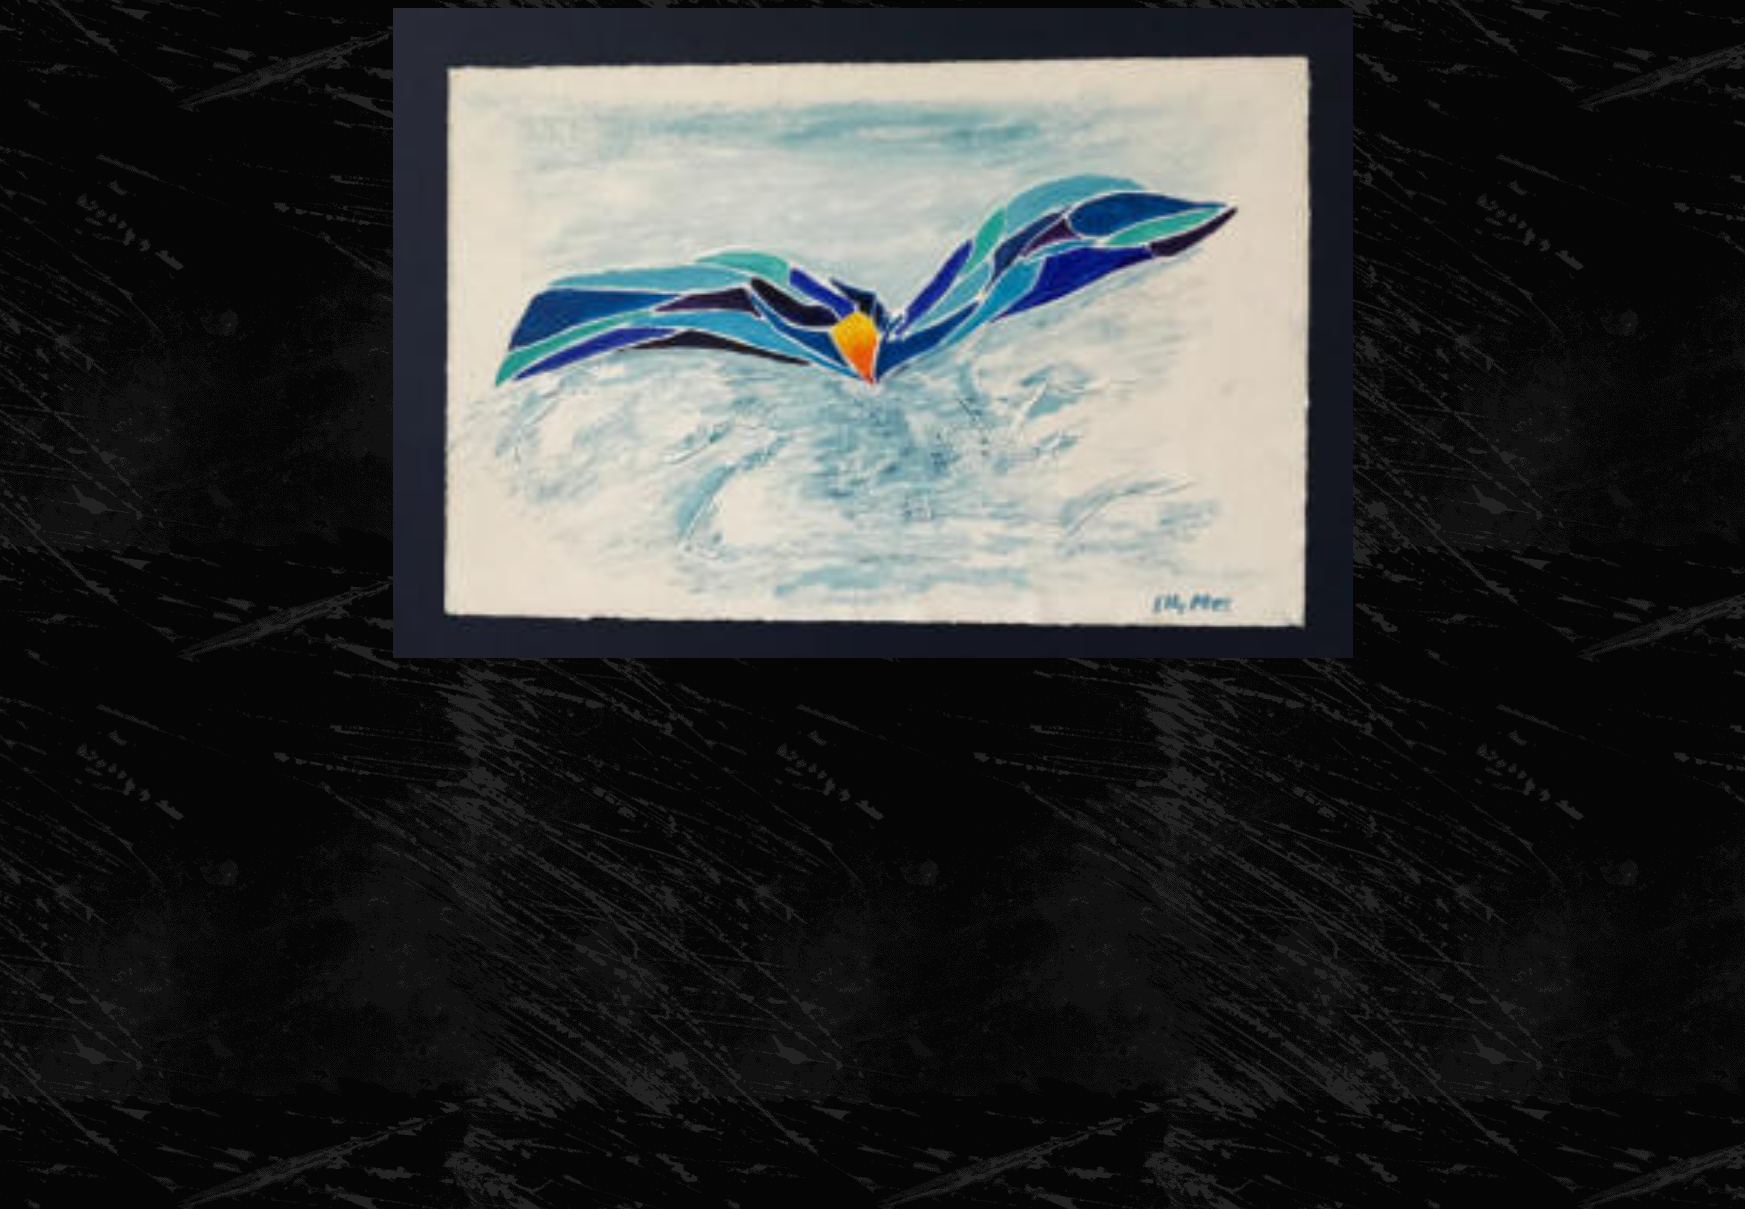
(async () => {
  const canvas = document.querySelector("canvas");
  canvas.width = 1745;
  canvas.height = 1209;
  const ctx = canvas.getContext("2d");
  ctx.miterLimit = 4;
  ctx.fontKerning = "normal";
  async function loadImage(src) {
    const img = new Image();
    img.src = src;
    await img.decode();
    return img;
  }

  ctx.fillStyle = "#ffffff";
  ctx.fillRect(0, 0, 1745, 1209);
  ctx.drawImage(await loadImage("img/1.png"), 0, 0, 1745, 1209);
  ctx.drawImage(await loadImage("img/2.png"), 393, 8, 960, 650);
})();
